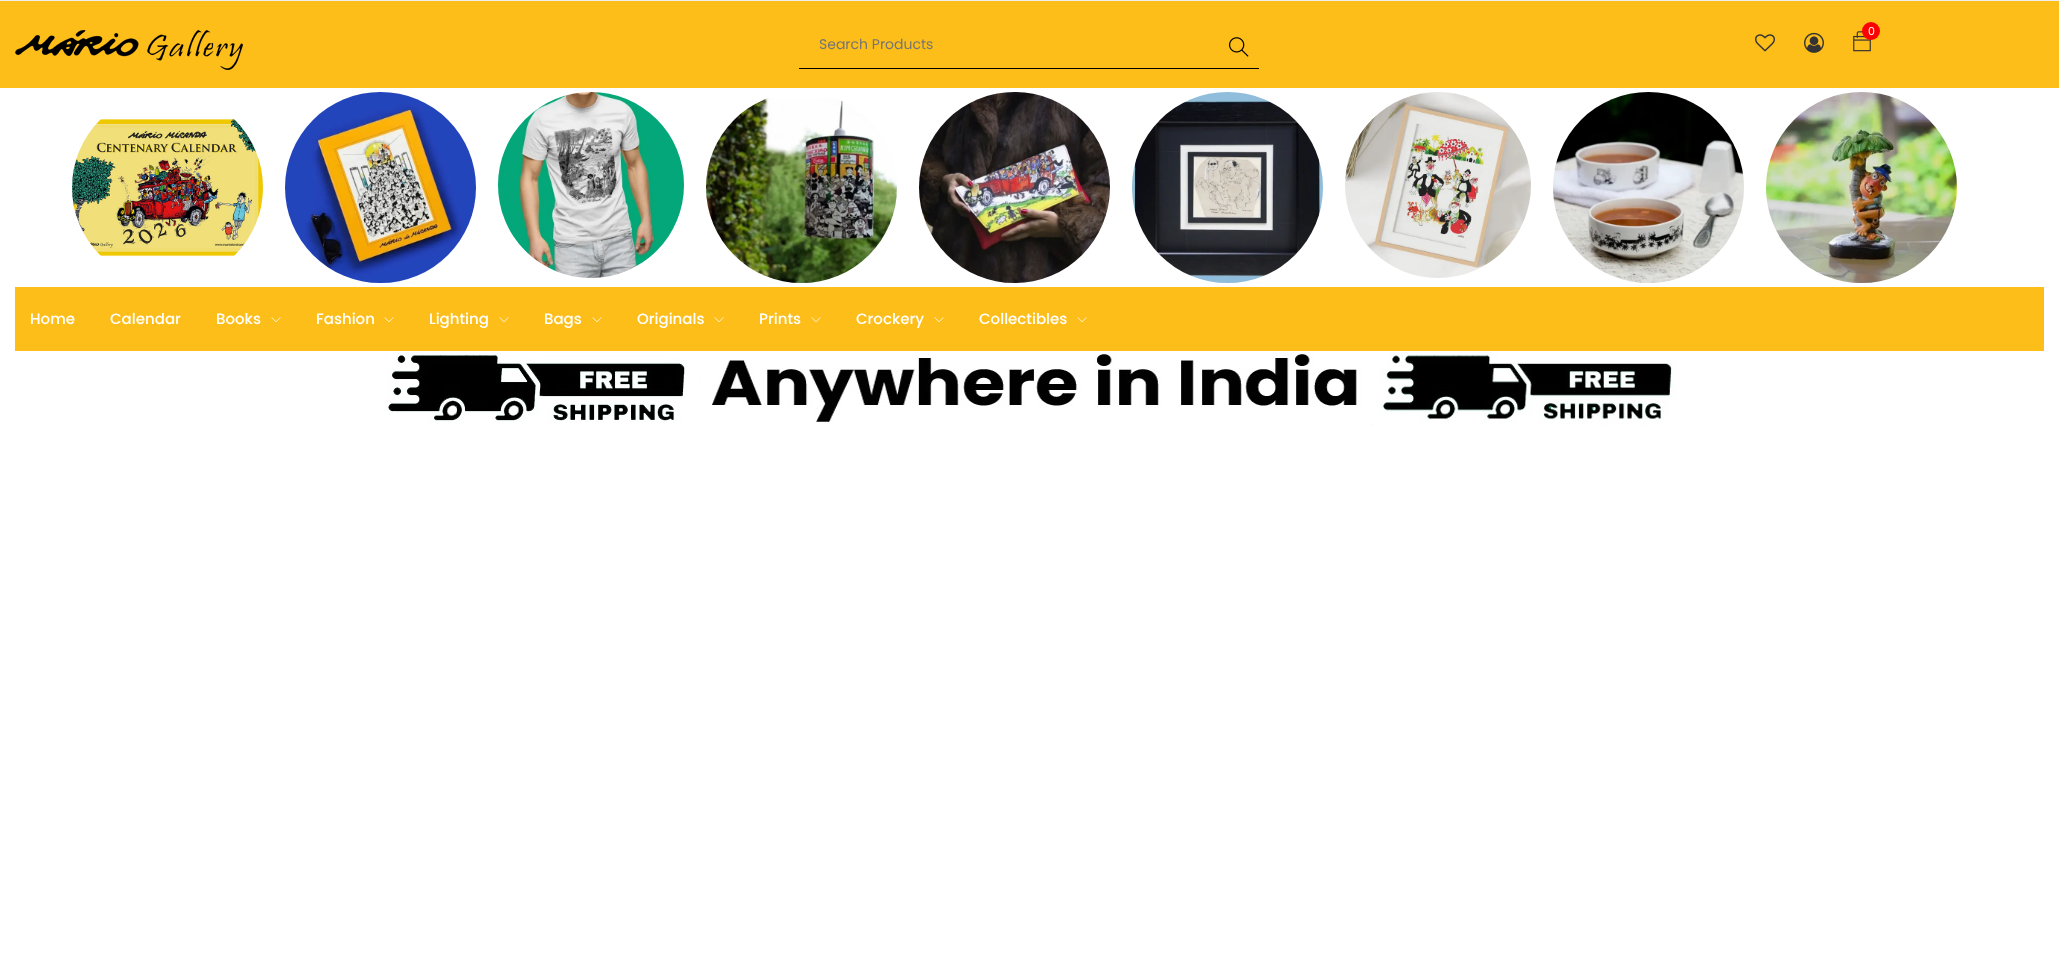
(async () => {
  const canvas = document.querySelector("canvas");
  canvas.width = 2059;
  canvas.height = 953;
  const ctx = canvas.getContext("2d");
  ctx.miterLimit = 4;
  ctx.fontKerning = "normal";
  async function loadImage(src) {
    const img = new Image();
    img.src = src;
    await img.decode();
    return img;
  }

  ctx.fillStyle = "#ffffff";
  ctx.fillRect(0, 0, 2059, 953);
  ctx.fillStyle = "#fdbe19";
  ctx.fillRect(0, 1, 2059, 87);
  ctx.fillStyle = "#eeeeee";
  ctx.fillRect(0, 0, 2059, 1);
  ctx.drawImage(await loadImage("img/1.png"), 15, 30, 228, 40);
  ctx.fillStyle = "#000000";
  ctx.fillRect(799, 68, 460, 1);
  ctx.drawImage(await loadImage("img/2.png"), 1229, 37, 20, 20);
  ctx.drawImage(await loadImage("img/3.png"), 1853, 31, 18, 21);
  ctx.fillStyle = "#ff0000";
  ctx.beginPath();
  ctx.arc(1871, 31, 9, 0, Math.PI * 2);
  ctx.fill();
  ctx.drawImage(await loadImage("img/4.png"), 1755, 34, 20, 18);
  ctx.drawImage(await loadImage("img/5.png"), 1804, 32, 20, 21);
  ctx.drawImage(await loadImage("img/6.png"), 72, 119, 191, 138);
  ctx.drawImage(await loadImage("img/7.png"), 285, 92, 191, 191);
  ctx.drawImage(await loadImage("img/8.png"), 498, 92, 186, 186);
  ctx.drawImage(await loadImage("img/9.png"), 706, 98, 191, 185);
  ctx.drawImage(await loadImage("img/10.png"), 919, 92, 191, 191);
  ctx.drawImage(await loadImage("img/11.png"), 1132, 92, 191, 191);
  ctx.drawImage(await loadImage("img/12.png"), 1345, 92, 186, 186);
  ctx.drawImage(await loadImage("img/13.png"), 1553, 92, 191, 191);
  ctx.drawImage(await loadImage("img/14.png"), 1766, 92, 191, 191);
  ctx.fillStyle = "#fdbe19";
  ctx.fillRect(15, 287, 2029, 64);
  ctx.drawImage(await loadImage("img/15.png"), 271, 317, 10, 6);
  ctx.drawImage(await loadImage("img/15.png"), 384, 317, 10, 6);
  ctx.drawImage(await loadImage("img/15.png"), 499, 317, 10, 6);
  ctx.drawImage(await loadImage("img/15.png"), 592, 317, 10, 6);
  ctx.drawImage(await loadImage("img/15.png"), 714, 317, 10, 6);
  ctx.drawImage(await loadImage("img/15.png"), 811, 317, 10, 6);
  ctx.drawImage(await loadImage("img/15.png"), 934, 317, 10, 6);
  ctx.drawImage(await loadImage("img/15.png"), 1077, 317, 10, 6);
  ctx.drawImage(await loadImage("img/16.png"), 388, 352, 1288, 74);
  ctx.font = "14px Poppins";
  ctx.fillStyle = "#757575";
  ctx.fillText("Search Products", 819, 49);
  ctx.font = "11px Poppins";
  ctx.fillStyle = "#ffffff";
  ctx.fillText("0", 1868, 35);
  ctx.font = "500 15px Poppins";
  for (const [text, x, y] of [
    ["Home", 30, 324],
    ["Calendar", 110, 324],
    ["Books", 216, 324],
    ["Fashion", 316, 324],
    ["Lighting", 429, 324],
    ["Bags", 544, 324],
    ["Originals", 637, 324],
    ["Prints", 759, 324],
    ["Crockery", 856, 324],
    ["Collectibles", 979, 324],
  ]) {
    ctx.fillText(text, x, y);
  }
})();
